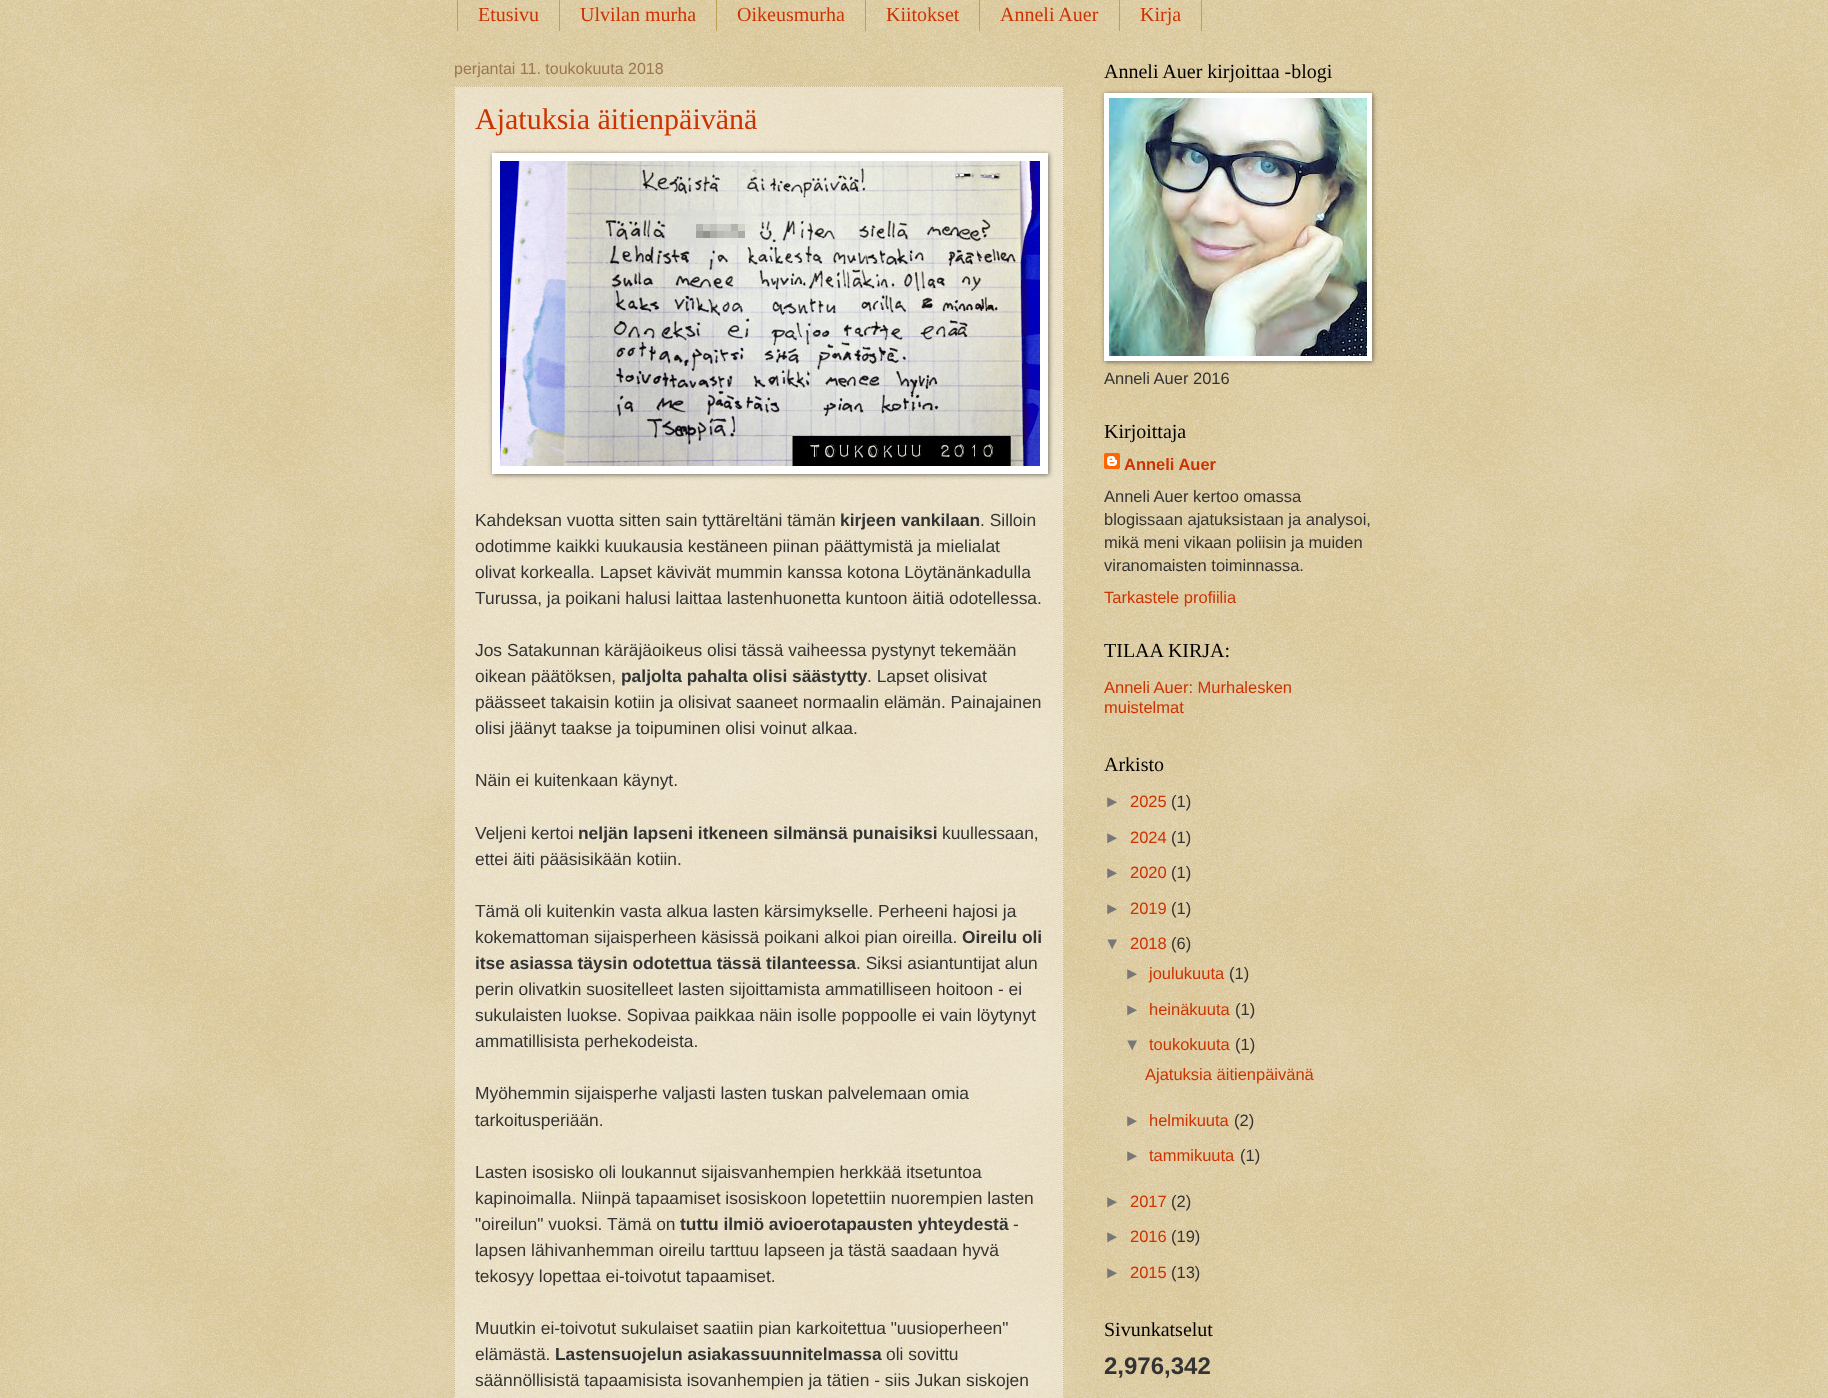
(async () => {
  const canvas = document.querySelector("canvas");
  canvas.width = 1828;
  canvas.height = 1398;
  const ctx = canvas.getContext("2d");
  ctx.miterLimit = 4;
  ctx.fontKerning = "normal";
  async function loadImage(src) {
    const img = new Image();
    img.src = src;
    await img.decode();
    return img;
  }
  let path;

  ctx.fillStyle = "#c0a154";
  ctx.fillRect(0, 0, 1828, 1398);
  ctx.drawImage(await loadImage("img/1.png"), 0, 0, 1828, 1398);
  for (const [x, y, w, h, color] of [
    [559, 0, 1, 31, "#c0a154"],
    [457, 0, 1, 31, "#c0a154"],
    [716, 0, 1, 31, "#c0a154"],
    [865, 0, 1, 31, "#c0a154"],
    [979, 0, 1, 31, "#c0a154"],
    [1119, 0, 1, 31, "#c0a154"],
    [1201, 0, 1, 31, "#c0a154"],
    [454, 86, 610, 1312, "rgba(255, 255, 255, 0.4)"],
  ]) {
    ctx.fillStyle = color;
    ctx.fillRect(x, y, w, h);
  }
  path = new Path2D("M454 86.5H1064");
  ctx.strokeStyle = "#ccbb99";
  ctx.setLineDash([1, 1]);
  ctx.stroke(path);
  path = new Path2D("M1063.5 86V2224");
  ctx.stroke(path);
  path = new Path2D("M454.5 86V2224");
  ctx.stroke(path);
  ctx.fillStyle = "rgba(0, 0, 0, 0.5)";
  ctx.filter = "blur(2.5px)";
  ctx.beginPath();
  ctx.rect(493, 154, 556, 321);
  ctx.fill();
  ctx.filter = "none";
  ctx.fillStyle = "#ffffff";
  ctx.fillRect(492, 153, 556, 321);
  ctx.drawImage(await loadImage("img/2.png"), 500, 161, 540, 305);
  ctx.fillStyle = "rgba(0, 0, 0, 0.5)";
  ctx.filter = "blur(2.5px)";
  ctx.beginPath();
  ctx.rect(1105, 94, 268, 268);
  ctx.fill();
  ctx.filter = "none";
  ctx.fillStyle = "#ffffff";
  ctx.fillRect(1104, 93, 268, 268);
  ctx.drawImage(await loadImage("img/3.png"), 1109, 98, 258, 258);
  ctx.drawImage(await loadImage("img/4.png"), 1104, 453, 16, 16);
  ctx.font = "20px Liberation Serif";
  ctx.fillStyle = "#cc3300";
  for (const [text, x, y] of [
    ["Etusivu", 478, 21],
    ["Ulvilan murha", 580, 21],
    ["Oikeusmurha", 737, 21],
    ["Kiitokset", 886, 21],
    ["Anneli Auer", 1000, 21],
    ["Kirja", 1140, 21],
  ]) {
    ctx.fillText(text, x, y);
  }
  ctx.font = "16px Liberation Sans";
  ctx.fillStyle = "#997755";
  ctx.fillText("perjantai 11. toukokuuta 2018", 454, 74);
  ctx.font = "30px Liberation Serif";
  ctx.fillStyle = "#cc3300";
  ctx.fillText("Ajatuksia äitienpäivänä", 475, 129);
  ctx.font = "17.4px Liberation Sans";
  ctx.fillStyle = "#333333";
  ctx.fillText("Kahdeksan vuotta sitten sain tyttäreltäni tämän", 475, 526);
  ctx.font = "bold 17.4px Liberation Sans";
  ctx.fillText("kirjeen vankilaan", 840, 526);
  ctx.font = "17.4px Liberation Sans";
  for (const [text, x, y] of [
    [". Silloin", 980, 526],
    ["odotimme kaikki kuukausia kestäneen piinan päättymistä ja mielialat", 475, 552],
    ["olivat korkealla. Lapset kävivät mummin kanssa kotona Löytänänkadulla", 475, 578],
    ["Turussa, ja poikani halusi laittaa lastenhuonetta kuntoon äitiä odotellessa.", 475, 604],
    ["Jos Satakunnan käräjäoikeus olisi tässä vaiheessa pystynyt tekemään", 475, 656],
    ["oikean päätöksen,", 475, 682],
  ]) {
    ctx.fillText(text, x, y);
  }
  ctx.font = "bold 17.4px Liberation Sans";
  ctx.fillText("paljolta pahalta olisi säästytty", 621, 682);
  ctx.font = "17.4px Liberation Sans";
  for (const [text, x, y] of [
    [". Lapset olisivat", 867, 682],
    ["päässeet takaisin kotiin ja olisivat saaneet normaalin elämän. Painajainen", 475, 708],
    ["olisi jäänyt taakse ja toipuminen olisi voinut alkaa.", 475, 734],
    ["Näin ei kuitenkaan käynyt.", 475, 786],
    ["Veljeni kertoi", 475, 839],
  ]) {
    ctx.fillText(text, x, y);
  }
  ctx.font = "bold 17.4px Liberation Sans";
  ctx.fillText("neljän lapseni itkeneen silmänsä punaisiksi", 578, 839);
  ctx.font = "17.4px Liberation Sans";
  for (const [text, x, y] of [
    ["kuullessaan,", 942, 839],
    ["ettei äiti pääsisikään kotiin.", 475, 865],
    ["Tämä oli kuitenkin vasta alkua lasten kärsimykselle. Perheeni hajosi ja", 475, 917],
    ["kokemattoman sijaisperheen käsissä poikani alkoi pian oireilla.", 475, 943],
  ]) {
    ctx.fillText(text, x, y);
  }
  ctx.font = "bold 17.4px Liberation Sans";
  ctx.fillText("Oireilu oli", 962, 943);
  ctx.fillText("itse asiassa täysin odotettua tässä tilanteessa", 475, 969);
  ctx.font = "17.4px Liberation Sans";
  for (const [text, x, y] of [
    [". Siksi asiantuntijat alun", 856, 969],
    ["perin olivatkin suositelleet lasten sijoittamista ammatilliseen hoitoon - ei", 475, 995],
    ["sukulaisten luokse. Sopivaa paikkaa näin isolle poppoolle ei vain löytynyt", 475, 1021],
    ["ammatillisista perhekodeista.", 475, 1047],
    ["Myöhemmin sijaisperhe valjasti lasten tuskan palvelemaan omia", 475, 1099],
    ["tarkoitusperiään.", 475, 1126],
    ["Lasten isosisko oli loukannut sijaisvanhempien herkkää itsetuntoa", 475, 1178],
    ["kapinoimalla. Niinpä tapaamiset isosiskoon lopetettiin nuorempien lasten", 475, 1204],
    ["\"oireilun\" vuoksi. Tämä on", 475, 1230],
  ]) {
    ctx.fillText(text, x, y);
  }
  ctx.font = "bold 17.4px Liberation Sans";
  ctx.fillText("tuttu ilmiö avioerotapausten yhteydestä", 680, 1230);
  ctx.font = "17.4px Liberation Sans";
  for (const [text, x, y] of [
    ["-", 1013, 1230],
    ["lapsen lähivanhemman oireilu tarttuu lapseen ja tästä saadaan hyvä", 475, 1256],
    ["tekosyy lopettaa ei-toivotut tapaamiset.", 475, 1282],
    ["Muutkin ei-toivotut sukulaiset saatiin pian karkoitettua \"uusioperheen\"", 475, 1334],
    ["elämästä.", 475, 1360],
  ]) {
    ctx.fillText(text, x, y);
  }
  ctx.font = "bold 17.4px Liberation Sans";
  ctx.fillText("Lastensuojelun asiakassuunnitelmassa", 555, 1360);
  ctx.font = "17.4px Liberation Sans";
  ctx.fillText("oli sovittu", 886, 1360);
  ctx.fillText("säännöllisistä tapaamisista isovanhempien ja tätien - siis Jukan siskojen", 475, 1386);
  ctx.font = "20px Liberation Serif";
  ctx.fillStyle = "#000000";
  ctx.fillText("Anneli Auer kirjoittaa -blogi", 1104, 78);
  ctx.font = "16.5px Liberation Sans";
  ctx.fillStyle = "#333333";
  ctx.fillText("Anneli Auer 2016", 1104, 384);
  ctx.font = "20px Liberation Serif";
  ctx.fillStyle = "#000000";
  ctx.fillText("Kirjoittaja", 1104, 438);
  ctx.font = "bold 16.5px Liberation Sans";
  ctx.fillStyle = "#cc3300";
  ctx.fillText("Anneli Auer", 1124, 470);
  ctx.font = "16.5px Liberation Sans";
  ctx.fillStyle = "#333333";
  for (const [text, x, y] of [
    ["Anneli Auer kertoo omassa", 1104, 502],
    ["blogissaan ajatuksistaan ja analysoi,", 1104, 525],
    ["mikä meni vikaan poliisin ja muiden", 1104, 548],
    ["viranomaisten toiminnassa.", 1104, 571],
  ]) {
    ctx.fillText(text, x, y);
  }
  ctx.fillStyle = "#cc3300";
  ctx.fillText("Tarkastele profiilia", 1104, 603);
  ctx.font = "20px Liberation Serif";
  ctx.fillStyle = "#000000";
  ctx.fillText("TILAA KIRJA:", 1104, 657);
  ctx.font = "16.5px Liberation Sans";
  ctx.fillStyle = "#cc3300";
  ctx.fillText("Anneli Auer: Murhalesken", 1104, 693);
  ctx.fillText("muistelmat", 1104, 713);
  ctx.font = "20px Liberation Serif";
  ctx.fillStyle = "#000000";
  ctx.fillText("Arkisto", 1104, 771);
  ctx.font = "16.5px Liberation Sans";
  ctx.fillStyle = "#777777";
  ctx.fillText("►", 1104, 807);
  ctx.fillStyle = "#cc3300";
  ctx.fillText("2025", 1130, 807);
  ctx.fillStyle = "#333333";
  ctx.fillText("(1)", 1171, 807);
  ctx.fillStyle = "#777777";
  ctx.fillText("►", 1104, 843);
  ctx.fillStyle = "#cc3300";
  ctx.fillText("2024", 1130, 843);
  ctx.fillStyle = "#333333";
  ctx.fillText("(1)", 1171, 843);
  ctx.fillStyle = "#777777";
  ctx.fillText("►", 1104, 878);
  ctx.fillStyle = "#cc3300";
  ctx.fillText("2020", 1130, 878);
  ctx.fillStyle = "#333333";
  ctx.fillText("(1)", 1171, 878);
  ctx.fillStyle = "#777777";
  ctx.fillText("►", 1104, 914);
  ctx.fillStyle = "#cc3300";
  ctx.fillText("2019", 1130, 914);
  ctx.fillStyle = "#333333";
  ctx.fillText("(1)", 1171, 914);
  ctx.fillStyle = "#777777";
  ctx.fillText("▼", 1104, 949);
  ctx.fillStyle = "#cc3300";
  ctx.fillText("2018", 1130, 949);
  ctx.fillStyle = "#333333";
  ctx.fillText("(6)", 1171, 949);
  ctx.fillStyle = "#777777";
  ctx.fillText("►", 1124, 979);
  ctx.fillStyle = "#cc3300";
  ctx.fillText("joulukuuta", 1149, 979);
  ctx.fillStyle = "#333333";
  ctx.fillText("(1)", 1229, 979);
  ctx.fillStyle = "#777777";
  ctx.fillText("►", 1124, 1015);
  ctx.fillStyle = "#cc3300";
  ctx.fillText("heinäkuuta", 1149, 1015);
  ctx.fillStyle = "#333333";
  ctx.fillText("(1)", 1235, 1015);
  ctx.fillStyle = "#777777";
  ctx.fillText("▼", 1124, 1050);
  ctx.fillStyle = "#cc3300";
  ctx.fillText("toukokuuta", 1149, 1050);
  ctx.fillStyle = "#333333";
  ctx.fillText("(1)", 1235, 1050);
  ctx.fillStyle = "#cc3300";
  ctx.fillText("Ajatuksia äitienpäivänä", 1145, 1080);
  ctx.fillStyle = "#777777";
  ctx.fillText("►", 1124, 1126);
  ctx.fillStyle = "#cc3300";
  ctx.fillText("helmikuuta", 1149, 1126);
  ctx.fillStyle = "#333333";
  ctx.fillText("(2)", 1234, 1126);
  ctx.fillStyle = "#777777";
  ctx.fillText("►", 1124, 1161);
  ctx.fillStyle = "#cc3300";
  ctx.fillText("tammikuuta", 1149, 1161);
  ctx.fillStyle = "#333333";
  ctx.fillText("(1)", 1240, 1161);
  ctx.fillStyle = "#777777";
  ctx.fillText("►", 1104, 1207);
  ctx.fillStyle = "#cc3300";
  ctx.fillText("2017", 1130, 1207);
  ctx.fillStyle = "#333333";
  ctx.fillText("(2)", 1171, 1207);
  ctx.fillStyle = "#777777";
  ctx.fillText("►", 1104, 1242);
  ctx.fillStyle = "#cc3300";
  ctx.fillText("2016", 1130, 1242);
  ctx.fillStyle = "#333333";
  ctx.fillText("(19)", 1171, 1242);
  ctx.fillStyle = "#777777";
  ctx.fillText("►", 1104, 1278);
  ctx.fillStyle = "#cc3300";
  ctx.fillText("2015", 1130, 1278);
  ctx.fillStyle = "#333333";
  ctx.fillText("(13)", 1171, 1278);
  ctx.font = "20px Liberation Serif";
  ctx.fillStyle = "#000000";
  ctx.fillText("Sivunkatselut", 1104, 1336);
  ctx.font = "bold 24px Liberation Sans";
  ctx.fillStyle = "#333333";
  ctx.fillText("2,976,342", 1104, 1374);
})();
